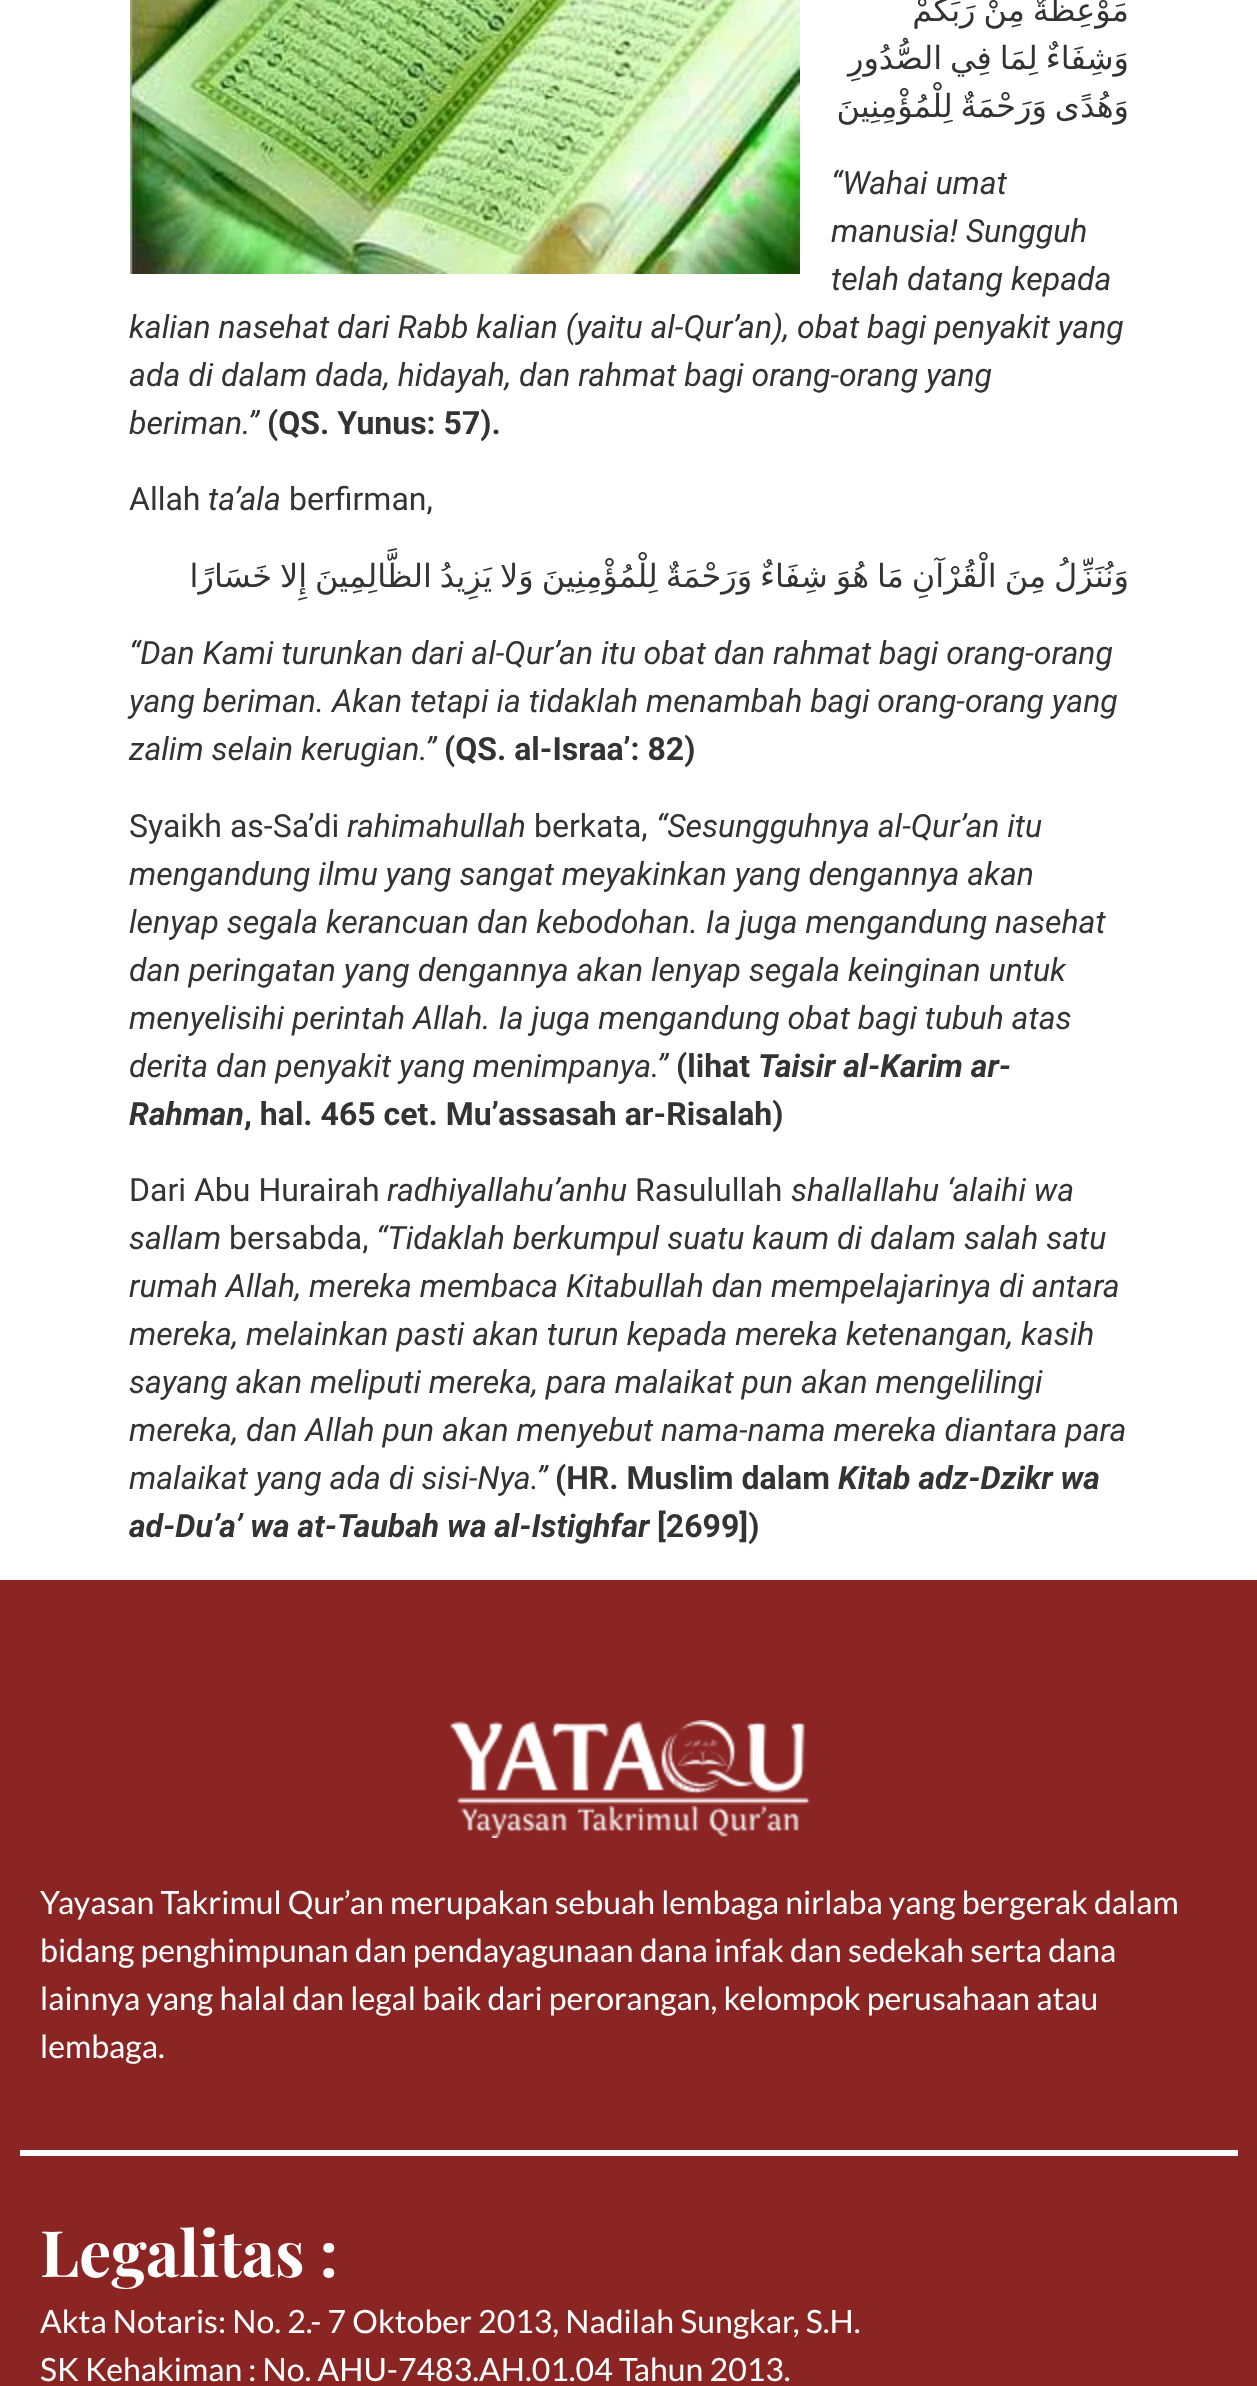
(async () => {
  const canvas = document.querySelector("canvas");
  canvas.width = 1257;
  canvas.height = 2386;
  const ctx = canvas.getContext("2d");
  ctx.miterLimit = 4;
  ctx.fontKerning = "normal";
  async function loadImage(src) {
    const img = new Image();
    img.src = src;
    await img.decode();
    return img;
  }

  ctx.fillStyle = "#ffffff";
  ctx.fillRect(0, 0, 1257, 2386);
  ctx.drawImage(await loadImage("img/1.png"), 130, 0, 670, 274);
  ctx.fillStyle = "#8b2524";
  ctx.fillRect(0, 1580, 1257, 806);
  ctx.drawImage(await loadImage("img/2.png"), 450, 1720, 360, 118);
  ctx.fillStyle = "#ffffff";
  ctx.fillRect(20, 2150, 1218, 6);
  ctx.wordSpacing = "-2.25px";
  ctx.direction = "rtl";
  ctx.font = "32px DejaVu Sans";
  ctx.fillStyle = "#333333";
  for (const [text, x, y] of [
    ["مَوْعِظَةٌ مِنْ رَبِّكُمْ", 1129, 21],
    ["وَشِفَاءٌ لِمَا فِي الصُّدُورِ", 1129, 69],
    ["وَهُدًى وَرَحْمَةٌ لِلْمُؤْمِنِينَ", 1129, 117],
  ]) {
    ctx.fillText(text, x, y);
  }
  ctx.wordSpacing = "0px";
  ctx.direction = "ltr";
  ctx.font = "italic 32px Roboto";
  for (const [text, x, y] of [
    ["“Wahai umat", 831, 194],
    ["manusia! Sungguh", 831, 242],
    ["telah datang kepada", 831, 290],
    ["kalian nasehat dari Rabb kalian (yaitu al-Qur’an), obat bagi penyakit yang", 129, 338],
    ["ada di dalam dada, hidayah, dan rahmat bagi orang-orang yang", 129, 386],
    ["beriman.”", 129, 434],
  ]) {
    ctx.fillText(text, x, y);
  }
  ctx.font = "bold 32px Roboto";
  ctx.fillText("(QS. Yunus: 57).", 267, 434);
  ctx.font = "32px Roboto";
  ctx.fillText("Allah", 129, 510);
  ctx.font = "italic 32px Roboto";
  ctx.fillText("ta’ala", 208, 510);
  ctx.font = "32px Roboto";
  ctx.fillText("berfirman,", 289, 510);
  ctx.wordSpacing = "-2.25px";
  ctx.direction = "rtl";
  ctx.font = "32px DejaVu Sans";
  ctx.fillText("وَنُنَزِّلُ مِنَ الْقُرْآنِ مَا هُوَ شِفَاءٌ وَرَحْمَةٌ لِلْمُؤْمِنِينَ وَلا يَزِيدُ الظَّالِمِينَ إِلا خَسَارًا", 1129, 587);
  ctx.wordSpacing = "0px";
  ctx.direction = "ltr";
  ctx.font = "italic 32px Roboto";
  for (const [text, x, y] of [
    ["“Dan Kami turunkan dari al-Qur’an itu obat dan rahmat bagi orang-orang", 129, 664],
    ["yang beriman. Akan tetapi ia tidaklah menambah bagi orang-orang yang", 129, 712],
    ["zalim selain kerugian.”", 129, 760],
  ]) {
    ctx.fillText(text, x, y);
  }
  ctx.font = "bold 32px Roboto";
  ctx.fillText("(QS. al-Israa’: 82)", 444, 760);
  ctx.font = "32px Roboto";
  ctx.fillText("Syaikh as-Sa’di", 129, 837);
  ctx.font = "italic 32px Roboto";
  ctx.fillText("rahimahullah", 347, 837);
  ctx.font = "32px Roboto";
  ctx.fillText("berkata,", 534, 837);
  ctx.font = "italic 32px Roboto";
  for (const [text, x, y] of [
    ["“Sesungguhnya al-Qur’an itu", 656, 837],
    ["mengandung ilmu yang sangat meyakinkan yang dengannya akan", 129, 885],
    ["lenyap segala kerancuan dan kebodohan. Ia juga mengandung nasehat", 129, 933],
    ["dan peringatan yang dengannya akan lenyap segala keinginan untuk", 129, 981],
    ["menyelisihi perintah Allah. Ia juga mengandung obat bagi tubuh atas", 129, 1029],
    ["derita dan penyakit yang menimpanya.”", 129, 1077],
  ]) {
    ctx.fillText(text, x, y);
  }
  ctx.font = "bold 32px Roboto";
  ctx.fillText("(lihat", 676, 1077);
  ctx.font = "italic bold 32px Roboto";
  ctx.fillText("Taisir al-Karim ar-", 758, 1077);
  ctx.fillText("Rahman", 129, 1125);
  ctx.font = "bold 32px Roboto";
  ctx.fillText(", hal. 465 cet. Mu’assasah ar-Risalah)", 244, 1125);
  ctx.font = "32px Roboto";
  ctx.fillText("Dari Abu Hurairah", 129, 1201);
  ctx.font = "italic 32px Roboto";
  ctx.fillText("radhiyallahu’anhu", 387, 1201);
  ctx.font = "32px Roboto";
  ctx.fillText("Rasulullah", 635, 1201);
  ctx.font = "italic 32px Roboto";
  ctx.fillText("shallallahu ‘alaihi wa", 791, 1201);
  ctx.fillText("sallam", 129, 1249);
  ctx.font = "32px Roboto";
  ctx.fillText("bersabda,", 229, 1249);
  ctx.font = "italic 32px Roboto";
  for (const [text, x, y] of [
    ["“Tidaklah berkumpul suatu kaum di dalam salah satu", 376, 1249],
    ["rumah Allah, mereka membaca Kitabullah dan mempelajarinya di antara", 129, 1297],
    ["mereka, melainkan pasti akan turun kepada mereka ketenangan, kasih", 129, 1345],
    ["sayang akan meliputi mereka, para malaikat pun akan mengelilingi", 129, 1393],
    ["mereka, dan Allah pun akan menyebut nama-nama mereka diantara para", 129, 1441],
    ["malaikat yang ada di sisi-Nya.”", 129, 1489],
  ]) {
    ctx.fillText(text, x, y);
  }
  ctx.font = "bold 32px Roboto";
  ctx.fillText("(HR. Muslim dalam", 555, 1489);
  ctx.font = "italic bold 32px Roboto";
  ctx.fillText("Kitab adz-Dzikr wa", 838, 1489);
  ctx.fillText("ad-Du’a’ wa at-Taubah wa al-Istighfar", 129, 1537);
  ctx.font = "bold 32px Roboto";
  ctx.fillText("[2699])", 657, 1537);
  ctx.font = "32px Lato";
  ctx.fillStyle = "#ffffff";
  for (const [text, x, y] of [
    ["Yayasan Takrimul Qur’an merupakan sebuah lembaga nirlaba yang bergerak dalam", 40, 1914],
    ["bidang penghimpunan dan pendayagunaan dana infak dan sedekah serta dana", 40, 1962],
    ["lainnya yang halal dan legal baik dari perorangan, kelompok perusahaan atau", 40, 2010],
    ["lembaga.", 40, 2058],
  ]) {
    ctx.fillText(text, x, y);
  }
  ctx.font = "bold 64px Playfair Display";
  ctx.fillText("Legalitas :", 40, 2277);
  ctx.font = "32px Lato";
  ctx.fillText("Akta Notaris: No. 2.- 7 Oktober 2013, Nadilah Sungkar, S.H.", 40, 2333);
  ctx.fillText("SK Kehakiman : No. AHU-7483.AH.01.04 Tahun 2013.", 40, 2381);
})();
